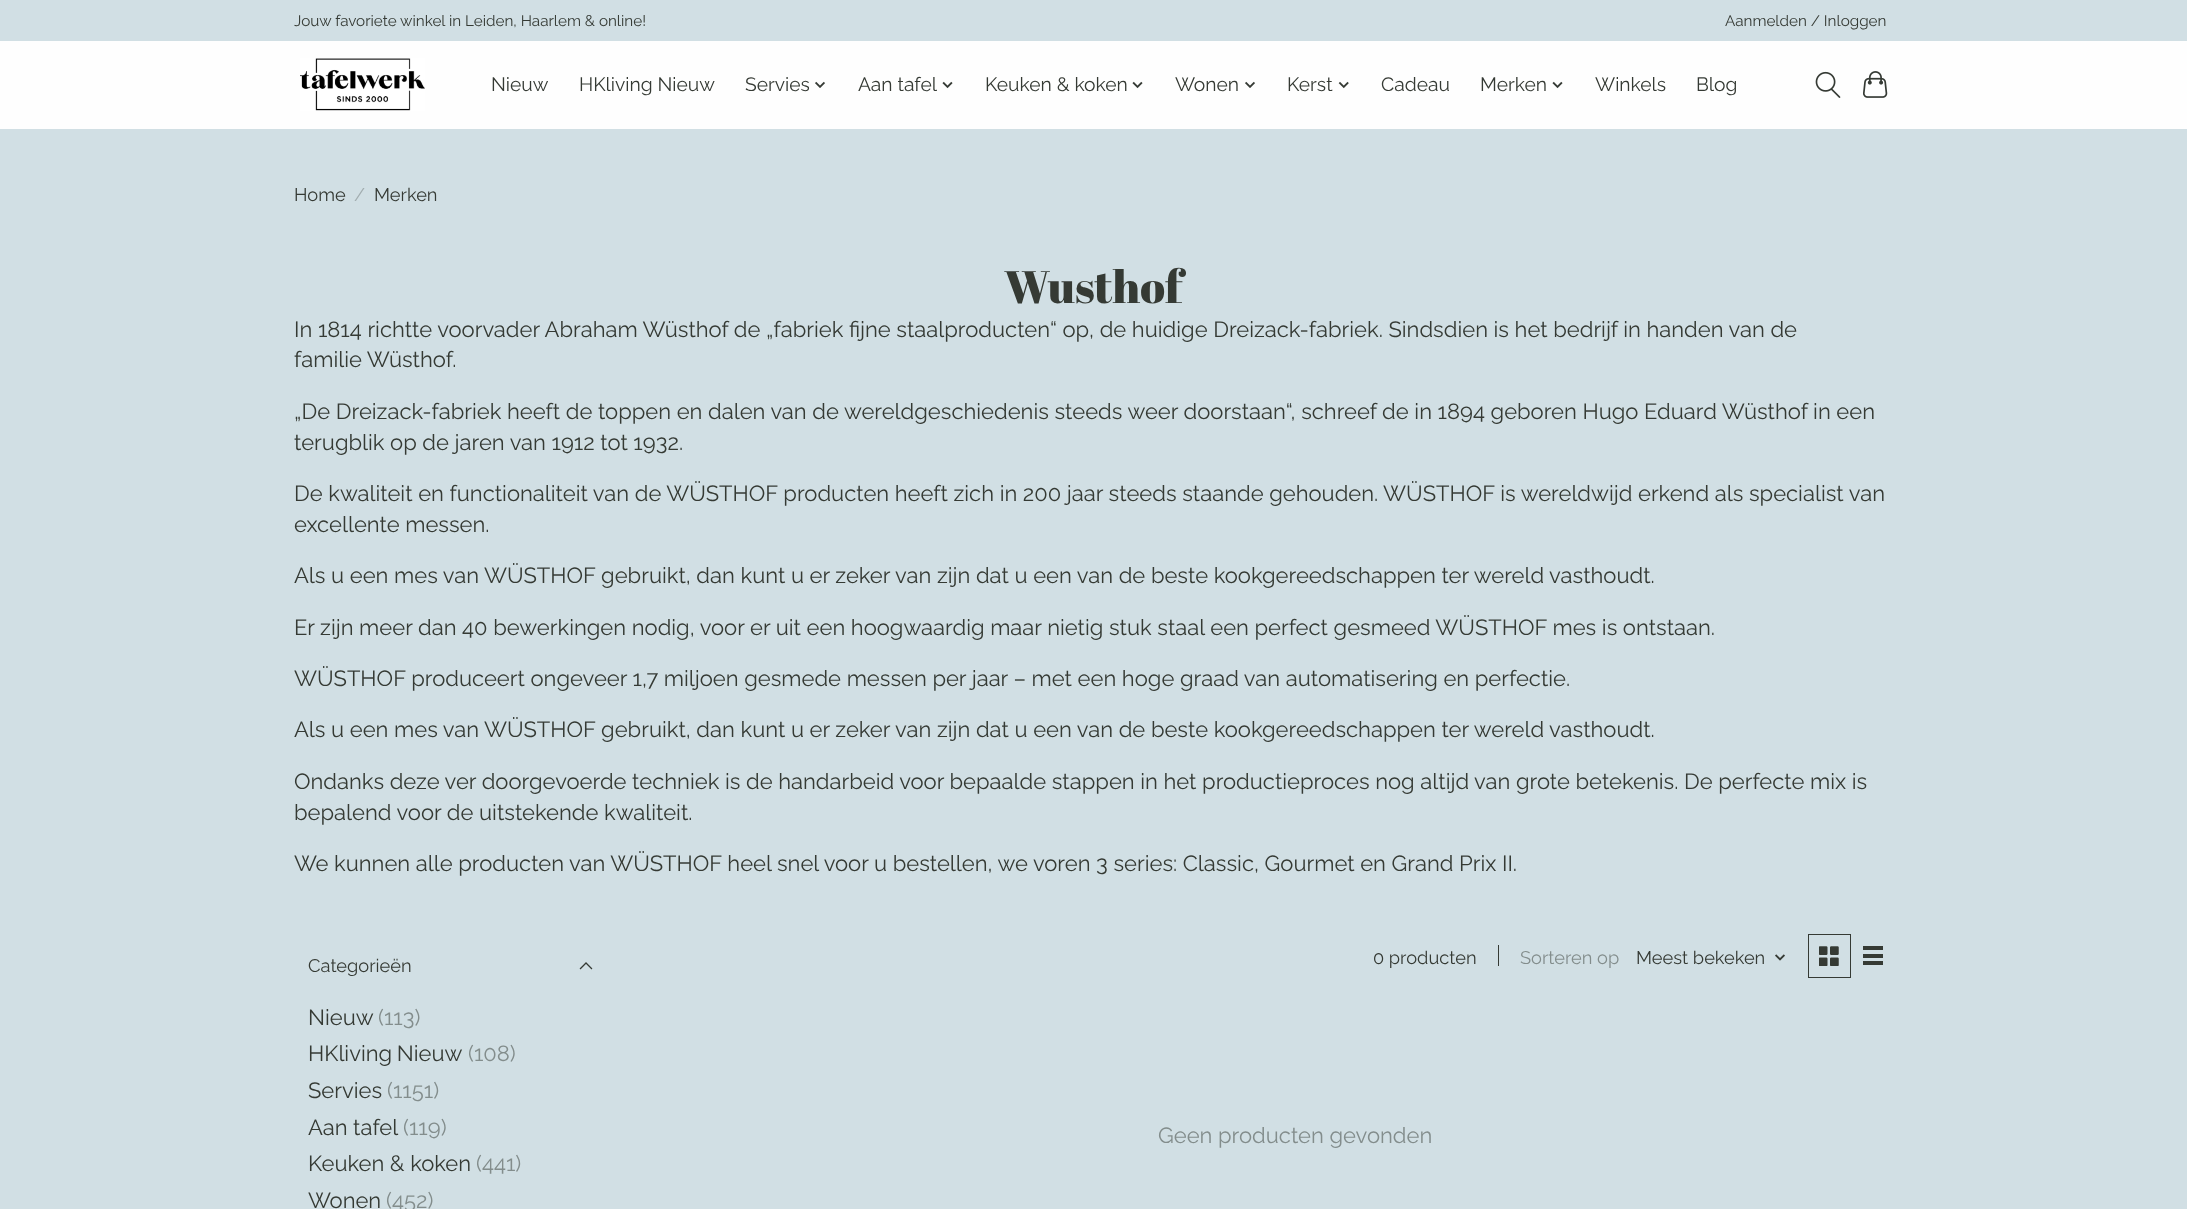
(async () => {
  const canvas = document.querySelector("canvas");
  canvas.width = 2187;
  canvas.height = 1209;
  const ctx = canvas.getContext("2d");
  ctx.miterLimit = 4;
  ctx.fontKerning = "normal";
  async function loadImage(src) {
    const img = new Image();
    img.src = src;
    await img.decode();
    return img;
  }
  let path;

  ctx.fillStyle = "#d1dfe4";
  ctx.fillRect(0, 0, 2187, 1209);
  ctx.fillStyle = "#fefefe";
  ctx.fillRect(0, 41, 2187, 88);
  ctx.drawImage(await loadImage("img/1.png"), 300, 58, 125, 53);
  ctx.drawImage(await loadImage("img/2.png"), 815, 81, 10, 7);
  ctx.drawImage(await loadImage("img/3.png"), 942, 81, 11, 8);
  ctx.drawImage(await loadImage("img/3.png"), 1132, 81, 11, 8);
  ctx.drawImage(await loadImage("img/2.png"), 1245, 81, 10, 7);
  ctx.drawImage(await loadImage("img/4.png"), 1338, 81, 11, 8);
  ctx.drawImage(await loadImage("img/3.png"), 1552, 81, 11, 8);
  ctx.drawImage(await loadImage("img/5.png"), 1815, 71, 26, 27);
  ctx.drawImage(await loadImage("img/6.png"), 1863, 71, 25, 27);
  path = new Path2D("M580.5 968.5L586 963M591.5 968.5L586 963");
  ctx.strokeStyle = "#353a34";
  ctx.lineWidth = 1.3;
  ctx.lineCap = "square";
  ctx.stroke(path);
  ctx.fillStyle = "#353a34";
  ctx.fillRect(1498, 945, 1, 21);
  ctx.drawImage(await loadImage("img/7.png"), 1775, 954, 10, 7);
  ctx.lineWidth = 1;
  ctx.strokeRect(1808.5, 934.5, 42, 43);
  ctx.drawImage(await loadImage("img/8.png"), 1819, 946, 20, 20);
  for (const [x, y, w, h, color] of [
    [1863, 946, 20, 4, "#353a34"],
    [1863, 954, 20, 4, "#353a34"],
    [1863, 961, 20, 4, "#353a34"],
  ]) {
    ctx.fillStyle = color;
    ctx.fillRect(x, y, w, h);
  }
  ctx.font = "15.25px Raleway";
  ctx.fillText("Jouw favoriete winkel in Leiden, Haarlem & online!", 294, 26);
  ctx.fillText("Aanmelden / Inloggen", 1725, 26);
  ctx.font = "19.25px Raleway";
  for (const [text, x, y] of [
    ["Nieuw", 491, 91],
    ["HKliving Nieuw", 579, 91],
    ["Servies", 745, 91],
    ["Aan tafel", 858, 91],
    ["Keuken & koken", 985, 91],
    ["Wonen", 1175, 91],
    ["Kerst", 1287, 91],
    ["Cadeau", 1381, 91],
    ["Merken", 1480, 91],
    ["Winkels", 1595, 91],
    ["Blog", 1696, 91],
  ]) {
    ctx.fillText(text, x, y);
  }
  ctx.font = "18.25px Raleway";
  ctx.fillText("Home", 294, 201);
  ctx.fillStyle = "#a2adaf";
  ctx.fillText("/", 354, 201);
  ctx.fillStyle = "#353a34";
  ctx.fillText("Merken", 374, 201);
  ctx.font = "45.5px Abril Fatface";
  ctx.fillText("Wusthof", 1004, 303);
  ctx.font = "22px Raleway";
  for (const [text, x, y] of [
    ["In 1814 richtte voorvader Abraham Wüsthof de „fabriek fijne staalproducten“ op, de huidige Dreizack-fabriek. Sindsdien is het bedrijf in handen van de", 294, 337],
    ["familie Wüsthof.", 294, 367],
    ["„De Dreizack-fabriek heeft de toppen en dalen van de wereldgeschiedenis steeds weer doorstaan“, schreef de in 1894 geboren Hugo Eduard Wüsthof in een", 294, 419],
    ["terugblik op de jaren van 1912 tot 1932.", 294, 450],
    ["De kwaliteit en functionaliteit van de WÜSTHOF producten heeft zich in 200 jaar steeds staande gehouden. WÜSTHOF is wereldwijd erkend als specialist van", 294, 501],
    ["excellente messen.", 294, 532],
    ["Als u een mes van WÜSTHOF gebruikt, dan kunt u er zeker van zijn dat u een van de beste kookgereedschappen ter wereld vasthoudt.", 294, 583],
    ["Er zijn meer dan 40 bewerkingen nodig, voor er uit een hoogwaardig maar nietig stuk staal een perfect gesmeed WÜSTHOF mes is ontstaan.", 294, 635],
    ["WÜSTHOF produceert ongeveer 1,7 miljoen gesmede messen per jaar – met een hoge graad van automatisering en perfectie.", 294, 686],
    ["Als u een mes van WÜSTHOF gebruikt, dan kunt u er zeker van zijn dat u een van de beste kookgereedschappen ter wereld vasthoudt.", 294, 737],
    ["Ondanks deze ver doorgevoerde techniek is de handarbeid voor bepaalde stappen in het productieproces nog altijd van grote betekenis. De perfecte mix is", 294, 789],
    ["bepalend voor de uitstekende kwaliteit.", 294, 820],
    ["We kunnen alle producten van WÜSTHOF heel snel voor u bestellen, we voren 3 series: Classic, Gourmet en Grand Prix II.", 294, 871],
  ]) {
    ctx.fillText(text, x, y);
  }
  ctx.font = "18.25px Raleway";
  ctx.fillText("Categorieën", 308, 972);
  ctx.font = "22px Raleway";
  ctx.fillText("Nieuw", 308, 1025);
  ctx.fillStyle = "#838d8c";
  ctx.fillText("(113)", 378, 1025);
  ctx.wordSpacing = "-1px";
  ctx.fillStyle = "#353a34";
  ctx.fillText("HKliving Nieuw", 308, 1061);
  ctx.wordSpacing = "0px";
  ctx.fillStyle = "#838d8c";
  ctx.fillText("(108)", 468, 1061);
  ctx.fillStyle = "#353a34";
  ctx.fillText("Servies", 308, 1098);
  ctx.fillStyle = "#838d8c";
  ctx.fillText("(1151)", 387, 1098);
  ctx.fillStyle = "#353a34";
  ctx.fillText("Aan tafel", 308, 1135);
  ctx.fillStyle = "#838d8c";
  ctx.fillText("(119)", 403, 1135);
  ctx.fillStyle = "#353a34";
  ctx.fillText("Keuken & koken", 308, 1171);
  ctx.fillStyle = "#838d8c";
  ctx.fillText("(441)", 476, 1171);
  ctx.fillStyle = "#353a34";
  ctx.fillText("Wonen", 308, 1208);
  ctx.fillStyle = "#838d8c";
  ctx.fillText("(452)", 386, 1208);
  ctx.font = "18.25px Raleway";
  ctx.fillStyle = "#353a34";
  ctx.fillText("0 producten", 1373, 964);
  ctx.fillStyle = "#838d8c";
  ctx.fillText("Sorteren op", 1520, 964);
  ctx.fillStyle = "#353a34";
  ctx.fillText("Meest bekeken", 1636, 964);
  ctx.font = "22px Raleway";
  ctx.fillStyle = "#838d8c";
  ctx.fillText("Geen producten gevonden", 1158, 1143);
})();
